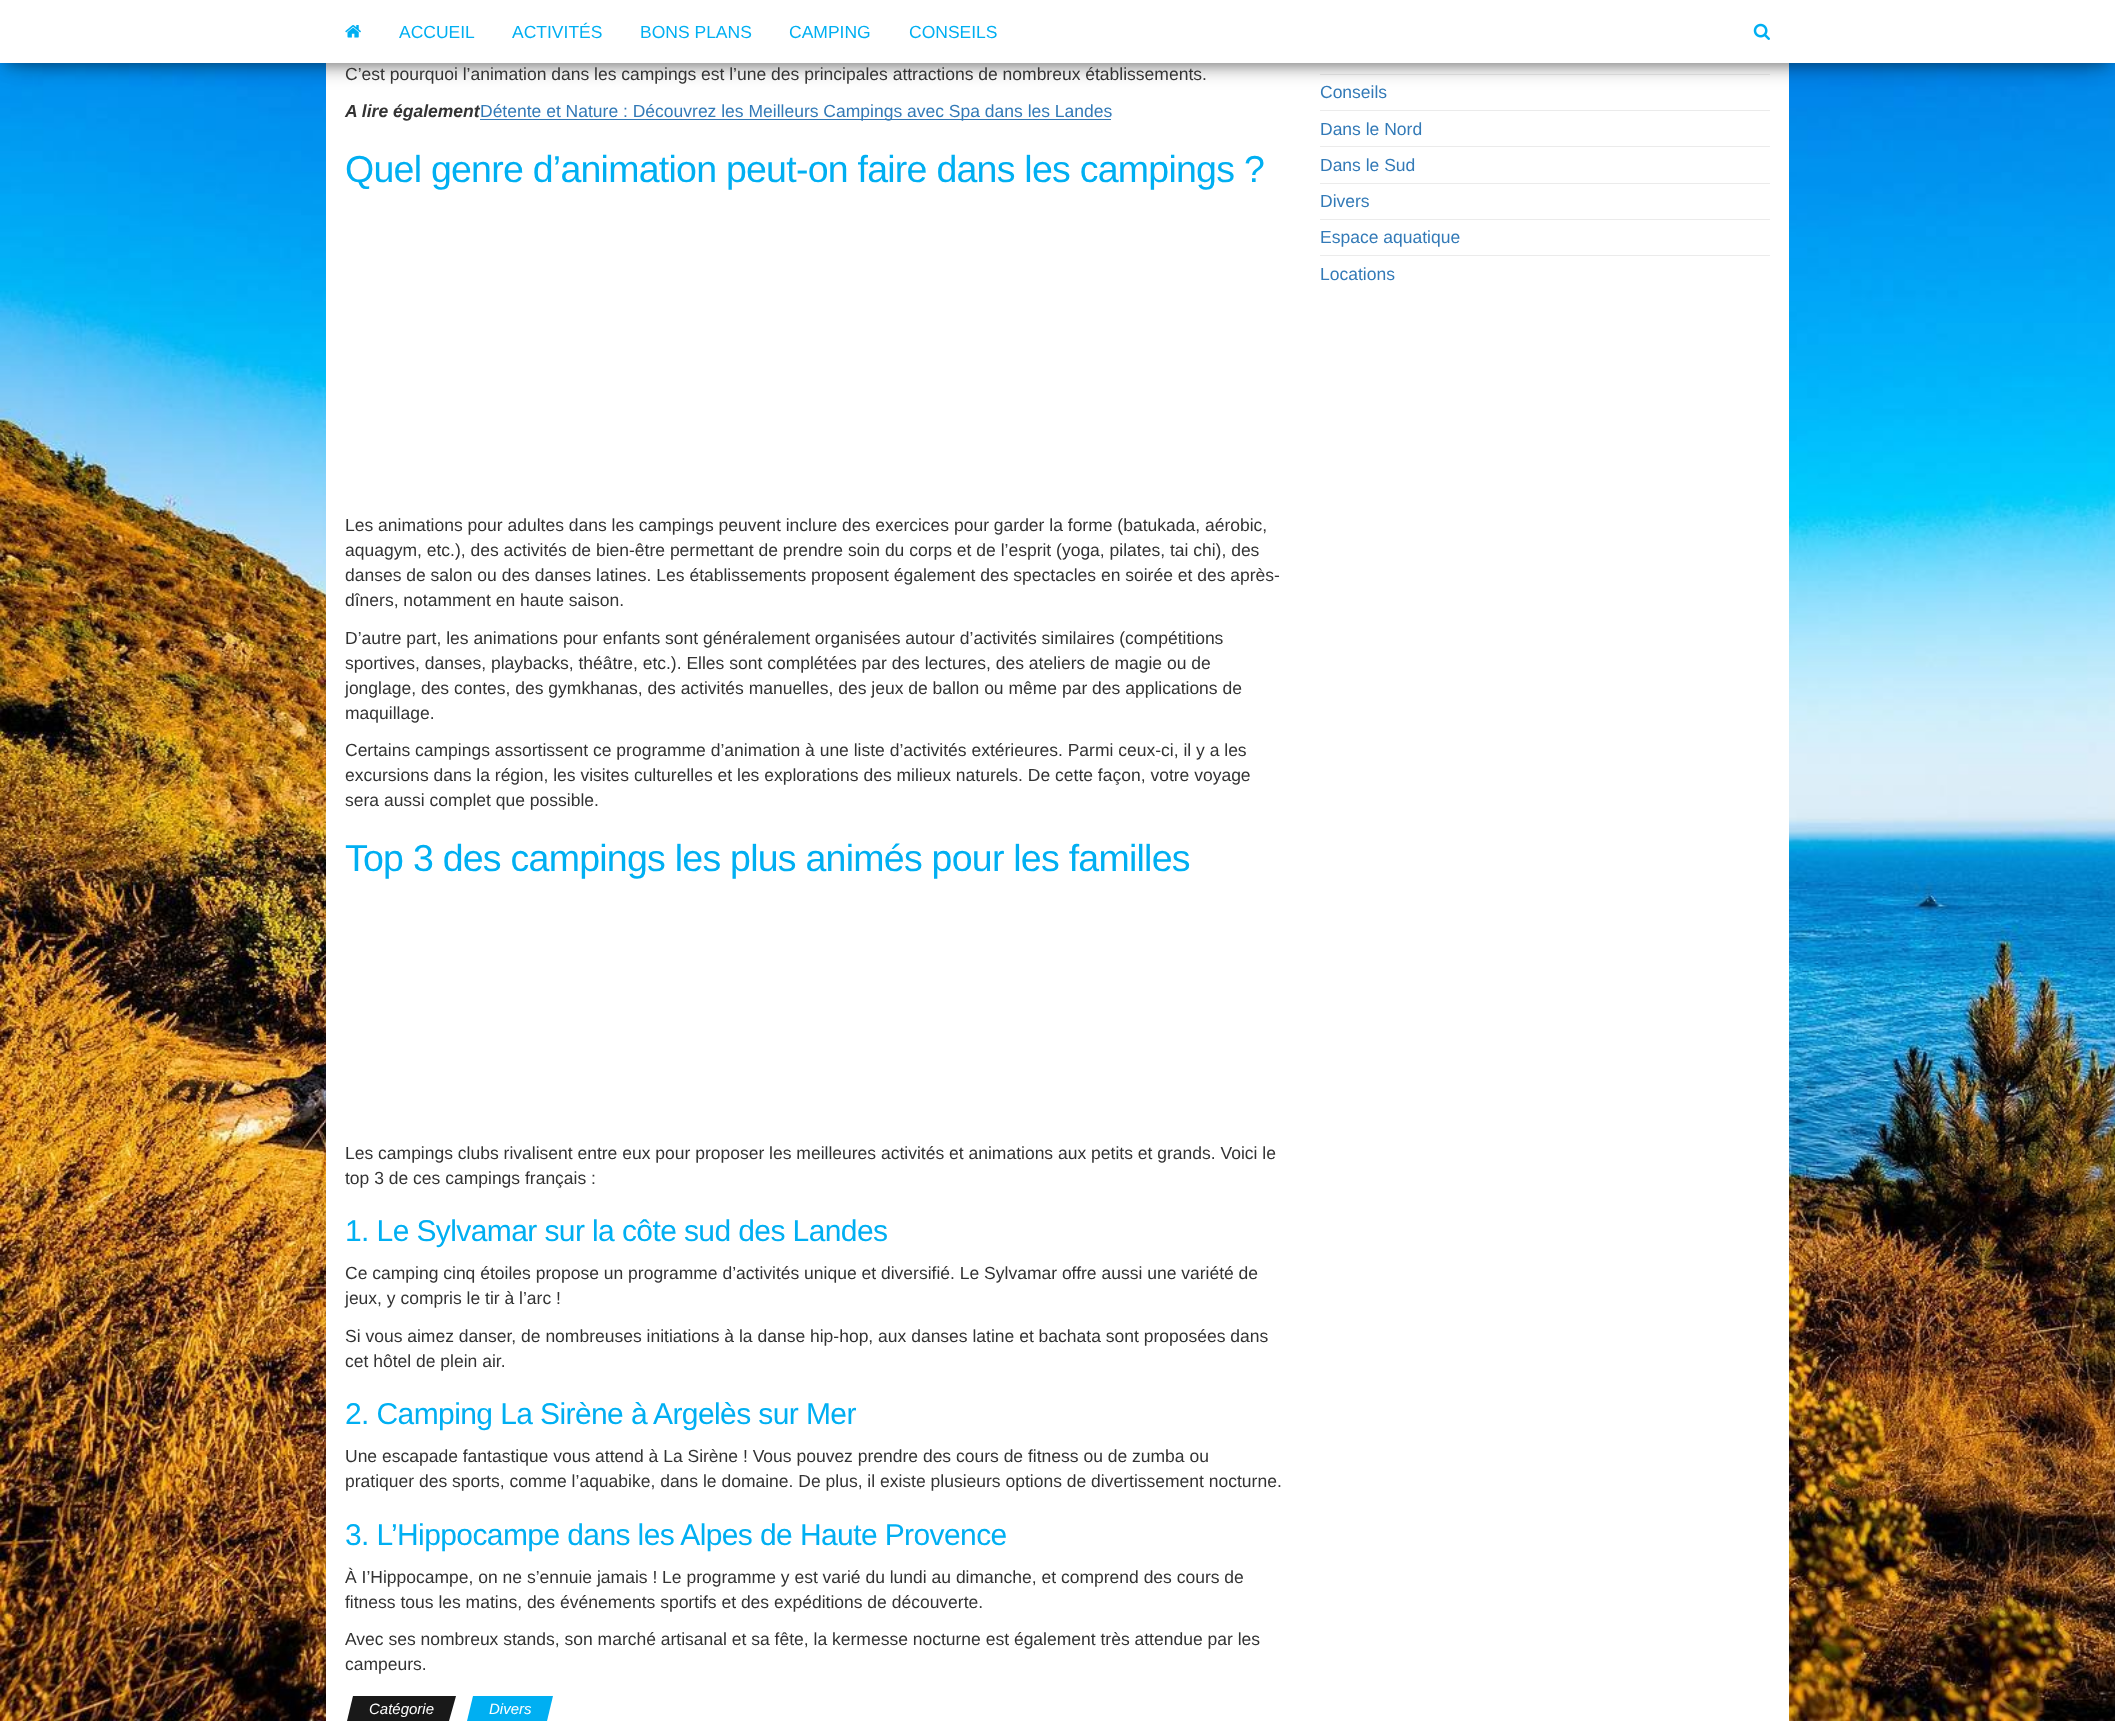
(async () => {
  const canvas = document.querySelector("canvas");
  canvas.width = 2115;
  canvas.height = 1721;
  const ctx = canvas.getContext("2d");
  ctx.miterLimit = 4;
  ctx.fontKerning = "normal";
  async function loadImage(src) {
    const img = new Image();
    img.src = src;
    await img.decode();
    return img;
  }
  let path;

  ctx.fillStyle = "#ffffff";
  ctx.fillRect(0, 0, 2115, 1721);
  ctx.drawImage(await loadImage("img/1.png"), 0, 63, 2115, 1658);
  ctx.fillRect(326, 63, 1463, 1658);
  ctx.fillStyle = "#ebebeb";
  ctx.fillRect(1320, 74, 450, 1);
  ctx.fillStyle = "rgba(0, 0, 0, 0.2)";
  ctx.filter = "blur(6px)";
  ctx.beginPath();
  ctx.rect(6, 16, 2103, 50);
  ctx.fill();
  ctx.filter = "none";
  ctx.fillStyle = "rgba(0, 0, 0, 0.12)";
  ctx.filter = "blur(12.5px)";
  ctx.beginPath();
  ctx.rect(0, 4, 2115, 62);
  ctx.fill();
  ctx.filter = "none";
  ctx.fillStyle = "rgba(0, 0, 0, 0.42)";
  ctx.filter = "blur(12.5px)";
  ctx.beginPath();
  ctx.rect(15, 28, 2085, 32);
  ctx.fill();
  ctx.filter = "none";
  ctx.fillStyle = "#ffffff";
  ctx.fillRect(0, 0, 2115, 63);
  ctx.drawImage(await loadImage("img/2.png"), 345, 25, 16, 13);
  ctx.drawImage(await loadImage("img/3.png"), 1753, 23, 17, 17);
  ctx.fillStyle = "#191919";
  path = new Path2D("M353 1696H456L449 1721H347Z");
  ctx.fill(path);
  ctx.fillStyle = "#00aff2";
  path = new Path2D("M473 1696H553L547 1721H467Z");
  ctx.fill(path);
  for (const [x, y, w, h, color] of [
    [1320, 110, 450, 1, "#ebebeb"],
    [1320, 146, 450, 1, "#ebebeb"],
    [1320, 183, 450, 1, "#ebebeb"],
    [1320, 219, 450, 1, "#ebebeb"],
    [1320, 255, 450, 1, "#ebebeb"],
  ]) {
    ctx.fillStyle = color;
    ctx.fillRect(x, y, w, h);
  }
  ctx.font = "17.5px Liberation Sans";
  ctx.fillStyle = "#00aff2";
  for (const [text, x, y] of [
    ["ACCUEIL", 399, 38],
    ["ACTIVITÉS", 512, 38],
    ["BONS PLANS", 640, 38],
    ["CAMPING", 789, 38],
    ["CONSEILS", 909, 38],
  ]) {
    ctx.fillText(text, x, y);
  }
  ctx.fillStyle = "#333333";
  ctx.fillText("C’est pourquoi l’animation dans les campings est l’une des principales attractions de nombreux établissements.", 345, 80);
  ctx.font = "italic bold 17.5px Liberation Sans";
  ctx.fillText("A lire également", 345, 117);
  ctx.fillStyle = "#337ab7";
  ctx.fillRect(480, 119, 631, 1);
  ctx.font = "17.5px Liberation Sans";
  ctx.fillText("Détente et Nature : Découvrez les Meilleurs Campings avec Spa dans les Landes", 480, 117);
  ctx.letterSpacing = "-0.75px";
  ctx.font = "37.5px Liberation Sans";
  ctx.fillStyle = "#00aff2";
  ctx.fillText("Quel genre d’animation peut-on faire dans les campings ?", 345, 182);
  ctx.letterSpacing = "0px";
  ctx.font = "17.5px Liberation Sans";
  ctx.fillStyle = "#333333";
  for (const [text, x, y] of [
    ["Les animations pour adultes dans les campings peuvent inclure des exercices pour garder la forme (batukada, aérobic,", 345, 531],
    ["aquagym, etc.), des activités de bien-être permettant de prendre soin du corps et de l’esprit (yoga, pilates, tai chi), des", 345, 556],
    ["danses de salon ou des danses latines. Les établissements proposent également des spectacles en soirée et des après-", 345, 581],
    ["dîners, notamment en haute saison.", 345, 606],
    ["D’autre part, les animations pour enfants sont généralement organisées autour d’activités similaires (compétitions", 345, 644],
    ["sportives, danses, playbacks, théâtre, etc.). Elles sont complétées par des lectures, des ateliers de magie ou de", 345, 669],
    ["jonglage, des contes, des gymkhanas, des activités manuelles, des jeux de ballon ou même par des applications de", 345, 694],
    ["maquillage.", 345, 719],
    ["Certains campings assortissent ce programme d’animation à une liste d’activités extérieures. Parmi ceux-ci, il y a les", 345, 756],
    ["excursions dans la région, les visites culturelles et les explorations des milieux naturels. De cette façon, votre voyage", 345, 781],
    ["sera aussi complet que possible.", 345, 806],
  ]) {
    ctx.fillText(text, x, y);
  }
  ctx.letterSpacing = "-0.75px";
  ctx.font = "37.5px Liberation Sans";
  ctx.fillStyle = "#00aff2";
  ctx.fillText("Top 3 des campings les plus animés pour les familles", 345, 871);
  ctx.letterSpacing = "0px";
  ctx.font = "17.5px Liberation Sans";
  ctx.fillStyle = "#333333";
  ctx.fillText("Les campings clubs rivalisent entre eux pour proposer les meilleures activités et animations aux petits et grands. Voici le", 345, 1159);
  ctx.fillText("top 3 de ces campings français :", 345, 1184);
  ctx.letterSpacing = "-0.6px";
  ctx.font = "30px Liberation Sans";
  ctx.fillStyle = "#00aff2";
  ctx.fillText("1. Le Sylvamar sur la côte sud des Landes", 345, 1241);
  ctx.letterSpacing = "0px";
  ctx.font = "17.5px Liberation Sans";
  ctx.fillStyle = "#333333";
  for (const [text, x, y] of [
    ["Ce camping cinq étoiles propose un programme d’activités unique et diversifié. Le Sylvamar offre aussi une variété de", 345, 1279],
    ["jeux, y compris le tir à l’arc !", 345, 1304],
    ["Si vous aimez danser, de nombreuses initiations à la danse hip-hop, aux danses latine et bachata sont proposées dans", 345, 1342],
    ["cet hôtel de plein air.", 345, 1367],
  ]) {
    ctx.fillText(text, x, y);
  }
  ctx.letterSpacing = "-0.6px";
  ctx.font = "30px Liberation Sans";
  ctx.fillStyle = "#00aff2";
  ctx.fillText("2. Camping La Sirène à Argelès sur Mer", 345, 1424);
  ctx.letterSpacing = "0px";
  ctx.font = "17.5px Liberation Sans";
  ctx.fillStyle = "#333333";
  ctx.fillText("Une escapade fantastique vous attend à La Sirène ! Vous pouvez prendre des cours de fitness ou de zumba ou", 345, 1462);
  ctx.fillText("pratiquer des sports, comme l’aquabike, dans le domaine. De plus, il existe plusieurs options de divertissement nocturne.", 345, 1487);
  ctx.letterSpacing = "-0.6px";
  ctx.font = "30px Liberation Sans";
  ctx.fillStyle = "#00aff2";
  ctx.fillText("3. L’Hippocampe dans les Alpes de Haute Provence", 345, 1545);
  ctx.letterSpacing = "0px";
  ctx.font = "17.5px Liberation Sans";
  ctx.fillStyle = "#333333";
  for (const [text, x, y] of [
    ["À I’Hippocampe, on ne s’ennuie jamais ! Le programme y est varié du lundi au dimanche, et comprend des cours de", 345, 1583],
    ["fitness tous les matins, des événements sportifs et des expéditions de découverte.", 345, 1608],
    ["Avec ses nombreux stands, son marché artisanal et sa fête, la kermesse nocturne est également très attendue par les", 345, 1645],
    ["campeurs.", 345, 1670],
  ]) {
    ctx.fillText(text, x, y);
  }
  ctx.font = "italic 15px Liberation Sans";
  ctx.fillStyle = "#ffffff";
  ctx.fillText("Catégorie", 369, 1714);
  ctx.fillText("Divers", 489, 1714);
  ctx.font = "17.5px Liberation Sans";
  ctx.fillStyle = "#337ab7";
  for (const [text, x, y] of [
    ["Conseils", 1320, 98],
    ["Dans le Nord", 1320, 135],
    ["Dans le Sud", 1320, 171],
    ["Divers", 1320, 207],
    ["Espace aquatique", 1320, 243],
    ["Locations", 1320, 280],
  ]) {
    ctx.fillText(text, x, y);
  }
})();
